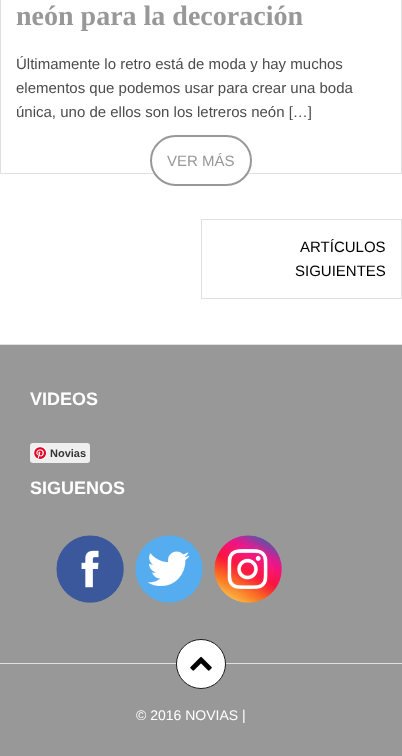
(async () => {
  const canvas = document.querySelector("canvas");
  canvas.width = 402;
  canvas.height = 756;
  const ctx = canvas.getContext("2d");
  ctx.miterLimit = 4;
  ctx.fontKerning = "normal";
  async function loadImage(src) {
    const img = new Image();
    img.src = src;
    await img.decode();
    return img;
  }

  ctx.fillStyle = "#ffffff";
  ctx.fillRect(0, 0, 402, 756);
  ctx.strokeStyle = "#e0e0e0";
  ctx.strokeRect(0.5, -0.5, 401, 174);
  ctx.beginPath();
  ctx.roundRect(151, 136, 100, 49, 24.5);
  ctx.fill();
  ctx.strokeStyle = "#989898";
  ctx.lineWidth = 2;
  ctx.stroke();
  ctx.strokeStyle = "#e0e0e0";
  ctx.lineWidth = 1;
  ctx.strokeRect(201.5, 219.5, 200, 79);
  ctx.fillStyle = "#989898";
  ctx.fillRect(0, 345, 402, 318);
  ctx.fillStyle = "#e0e0e0";
  ctx.fillRect(0, 344, 402, 1);
  ctx.fillStyle = "#efefef";
  ctx.beginPath();
  ctx.roundRect(30, 443, 60, 20, 3);
  ctx.fill();
  ctx.drawImage(await loadImage("img/1.png"), 33, 446, 14, 14);
  ctx.drawImage(await loadImage("img/2.png"), 56, 535, 68, 68);
  ctx.drawImage(await loadImage("img/3.png"), 135, 535, 68, 68);
  ctx.drawImage(await loadImage("img/4.png"), 214, 535, 68, 68);
  ctx.fillStyle = "#989898";
  ctx.fillRect(0, 664, 402, 92);
  ctx.fillStyle = "#e0e0e0";
  ctx.fillRect(0, 663, 402, 1);
  ctx.fillStyle = "#ffffff";
  ctx.beginPath();
  ctx.arc(201, 664, 24.5, 0, Math.PI * 2);
  ctx.fill();
  ctx.strokeStyle = "#1c1c1c";
  ctx.stroke();
  ctx.drawImage(await loadImage("img/5.png"), 190, 656, 22, 15);
  ctx.font = "bold 28px Liberation Serif";
  ctx.fillStyle = "#989898";
  ctx.fillText("neón para la decoración", 16, 25);
  ctx.font = "15px Liberation Sans";
  ctx.fillStyle = "#4c4c4c";
  for (const [text, x, y] of [
    ["Últimamente lo retro está de moda y hay muchos", 16, 69],
    ["elementos que podemos usar para crear una boda", 16, 93],
    ["única, uno de ellos son los letreros neón […]", 16, 117],
  ]) {
    ctx.fillText(text, x, y);
  }
  ctx.fillStyle = "#989898";
  ctx.fillText("VER MÁS", 167, 166);
  ctx.fillStyle = "#000000";
  ctx.fillText("ARTÍCULOS", 300, 252);
  ctx.fillText("SIGUIENTES", 295, 276);
  ctx.font = "bold 18px Liberation Sans";
  ctx.fillStyle = "#ffffff";
  ctx.fillText("VIDEOS", 30, 405);
  ctx.font = "bold 11px Liberation Sans";
  ctx.fillStyle = "#363636";
  ctx.fillText("Novias", 50, 457);
  ctx.font = "bold 18px Liberation Sans";
  ctx.fillStyle = "#ffffff";
  ctx.fillText("SIGUENOS", 30, 494);
  ctx.font = "14px Liberation Sans";
  ctx.fillText("© 2016 NOVIAS |", 136, 720);
})();
